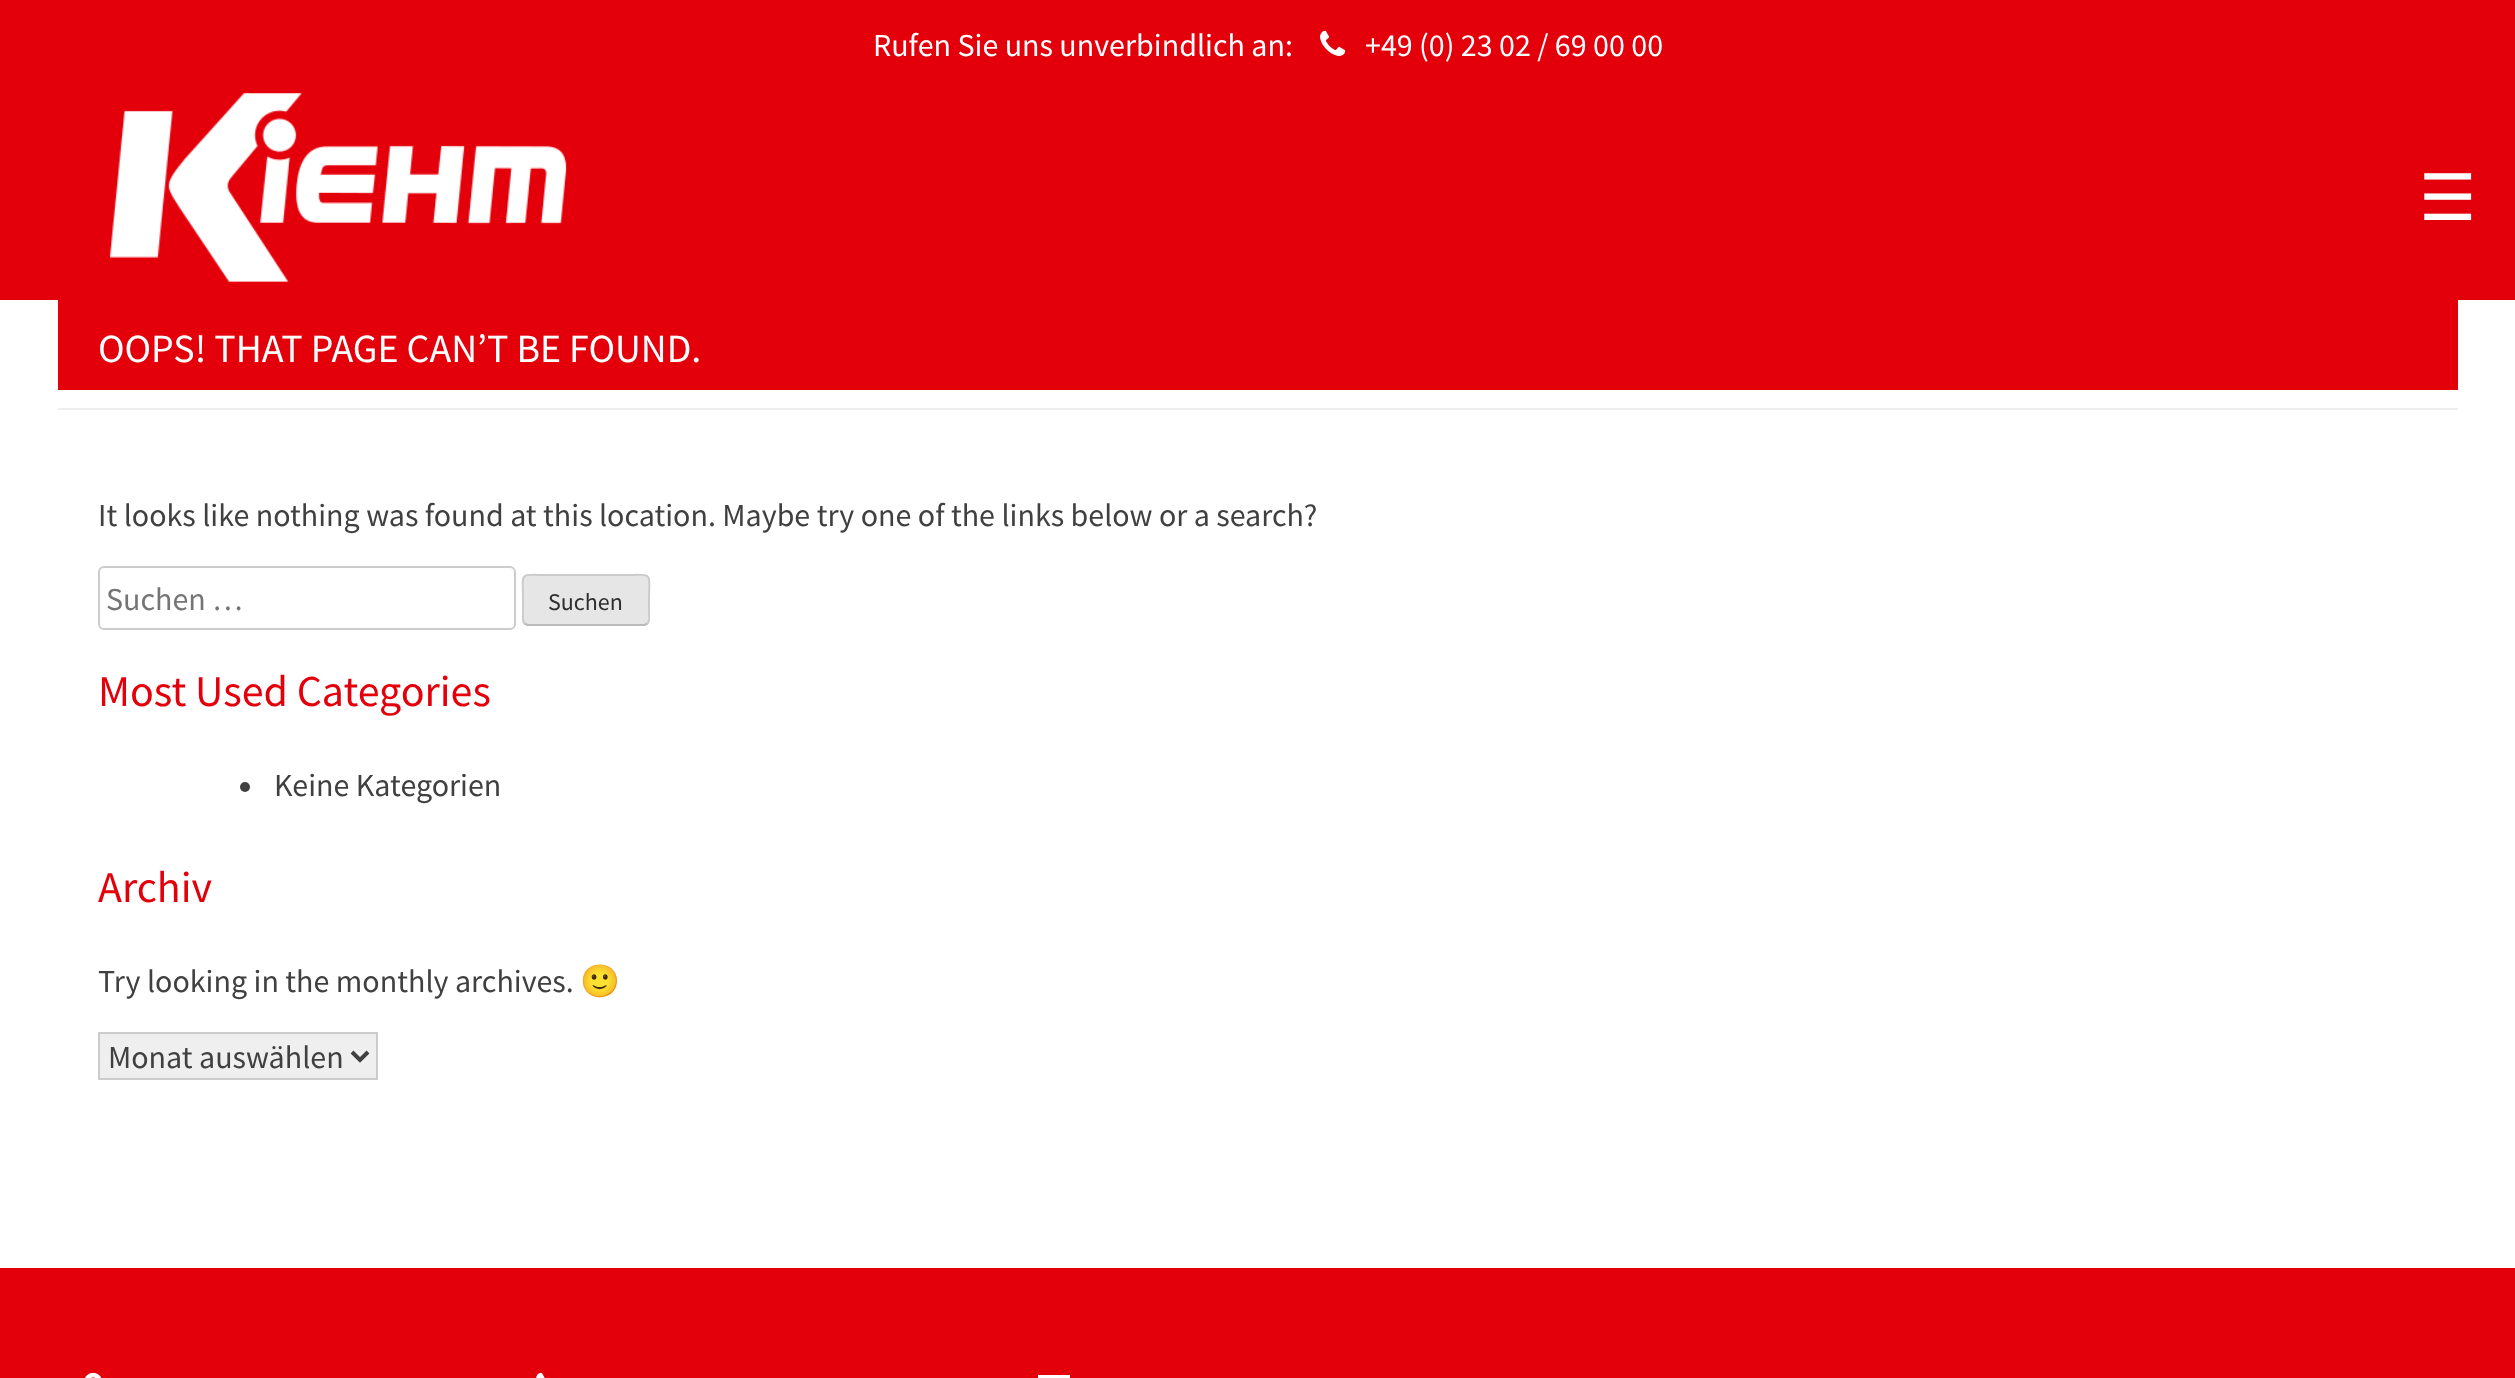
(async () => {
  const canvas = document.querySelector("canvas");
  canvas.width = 2515;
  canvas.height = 1378;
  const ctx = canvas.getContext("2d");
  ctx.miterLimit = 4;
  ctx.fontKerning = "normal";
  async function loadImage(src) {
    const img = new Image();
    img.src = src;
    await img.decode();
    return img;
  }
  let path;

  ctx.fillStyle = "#ffffff";
  ctx.fillRect(0, 0, 2515, 1378);
  ctx.fillStyle = "#e3000b";
  ctx.fillRect(0, 0, 2515, 300);
  ctx.drawImage(await loadImage("img/1.png"), 1320, 30, 26, 26);
  ctx.drawImage(await loadImage("img/2.png"), 109, 93, 458, 189);
  ctx.fillStyle = "#eeeeee";
  ctx.fillRect(58, 408, 2400, 2);
  ctx.fillStyle = "#e3000b";
  ctx.fillRect(58, 300, 2400, 90);
  ctx.beginPath();
  ctx.roundRect(99, 567, 416, 62, 5);
  ctx.strokeStyle = "#cccccc";
  ctx.lineWidth = 2;
  ctx.stroke();
  ctx.fillStyle = "#e6e6e6";
  ctx.beginPath();
  ctx.roundRect(522, 574, 128, 52, 6);
  ctx.fill();
  path = new Path2D("M647.5 623.5L644.5 625H527.5L524.5 623.5");
  ctx.strokeStyle = "#bbbbbb";
  ctx.stroke(path);
  path = new Path2D("M524.5 623.5C522 621 523 616 523 613.5V600C523 571 518 575 547.5 575H624.5C654 575 649 571 649 600V613.5C649 616 650 621 647.5 623.5");
  ctx.strokeStyle = "#cccccc";
  ctx.stroke(path);
  ctx.fillStyle = "#404040";
  ctx.beginPath();
  ctx.arc(245, 787, 5, 0, Math.PI * 2);
  ctx.fill();
  ctx.fillStyle = "#efefef";
  ctx.beginPath();
  ctx.rect(99, 1033, 278, 46);
  ctx.fill();
  ctx.stroke();
  path = new Path2D("M352 1052L360 1060L368 1052");
  ctx.strokeStyle = "#404040";
  ctx.lineWidth = 4;
  ctx.stroke(path);
  ctx.fillStyle = "#e3000b";
  ctx.fillRect(0, 1268, 2515, 110);
  ctx.drawImage(await loadImage("img/3.png"), 85, 1372, 17, 6);
  ctx.drawImage(await loadImage("img/4.png"), 536, 1372, 9, 6);
  ctx.fillStyle = "#ffffff";
  ctx.fillRect(1038, 1375, 32, 3);
  ctx.font = "32px Source Sans Pro";
  ctx.fillText("Rufen Sie uns unverbindlich an:", 873, 56);
  ctx.fillText("+49 (0) 23 02 / 69 00 00", 1365, 56);
  ctx.font = "64px DejaVu Sans";
  ctx.fillText("☰", 2419, 220);
  ctx.font = "40px Source Sans Pro";
  ctx.fillText("OOPS! THAT PAGE CAN’T BE FOUND.", 98, 362);
  ctx.font = "32px Source Sans Pro";
  ctx.fillStyle = "#404040";
  ctx.fillText("It looks like nothing was found at this location. Maybe try one of the links below or a search?", 98, 526);
  ctx.fillStyle = "#757575";
  ctx.fillText("Suchen …", 106, 610);
  ctx.font = "24px Source Sans Pro";
  ctx.fillStyle = "#2e2e2e";
  ctx.fillText("Suchen", 548, 610);
  ctx.font = "44px Source Sans Pro";
  ctx.fillStyle = "#e3000b";
  ctx.fillText("Most Used Categories", 98, 706);
  ctx.font = "32px Source Sans Pro";
  ctx.fillStyle = "#404040";
  ctx.fillText("Keine Kategorien", 274, 796);
  ctx.font = "44px Source Sans Pro";
  ctx.fillStyle = "#e3000b";
  ctx.fillText("Archiv", 98, 902);
  ctx.font = "32px Source Sans Pro";
  ctx.fillStyle = "#404040";
  ctx.fillText("Try looking in the monthly archives.", 98, 992);
  ctx.font = "32px Noto Color Emoji";
  ctx.fillText("🙂", 580, 992);
  ctx.font = "32px Source Sans Pro";
  ctx.fillText("Monat auswählen", 108, 1068);
})();
